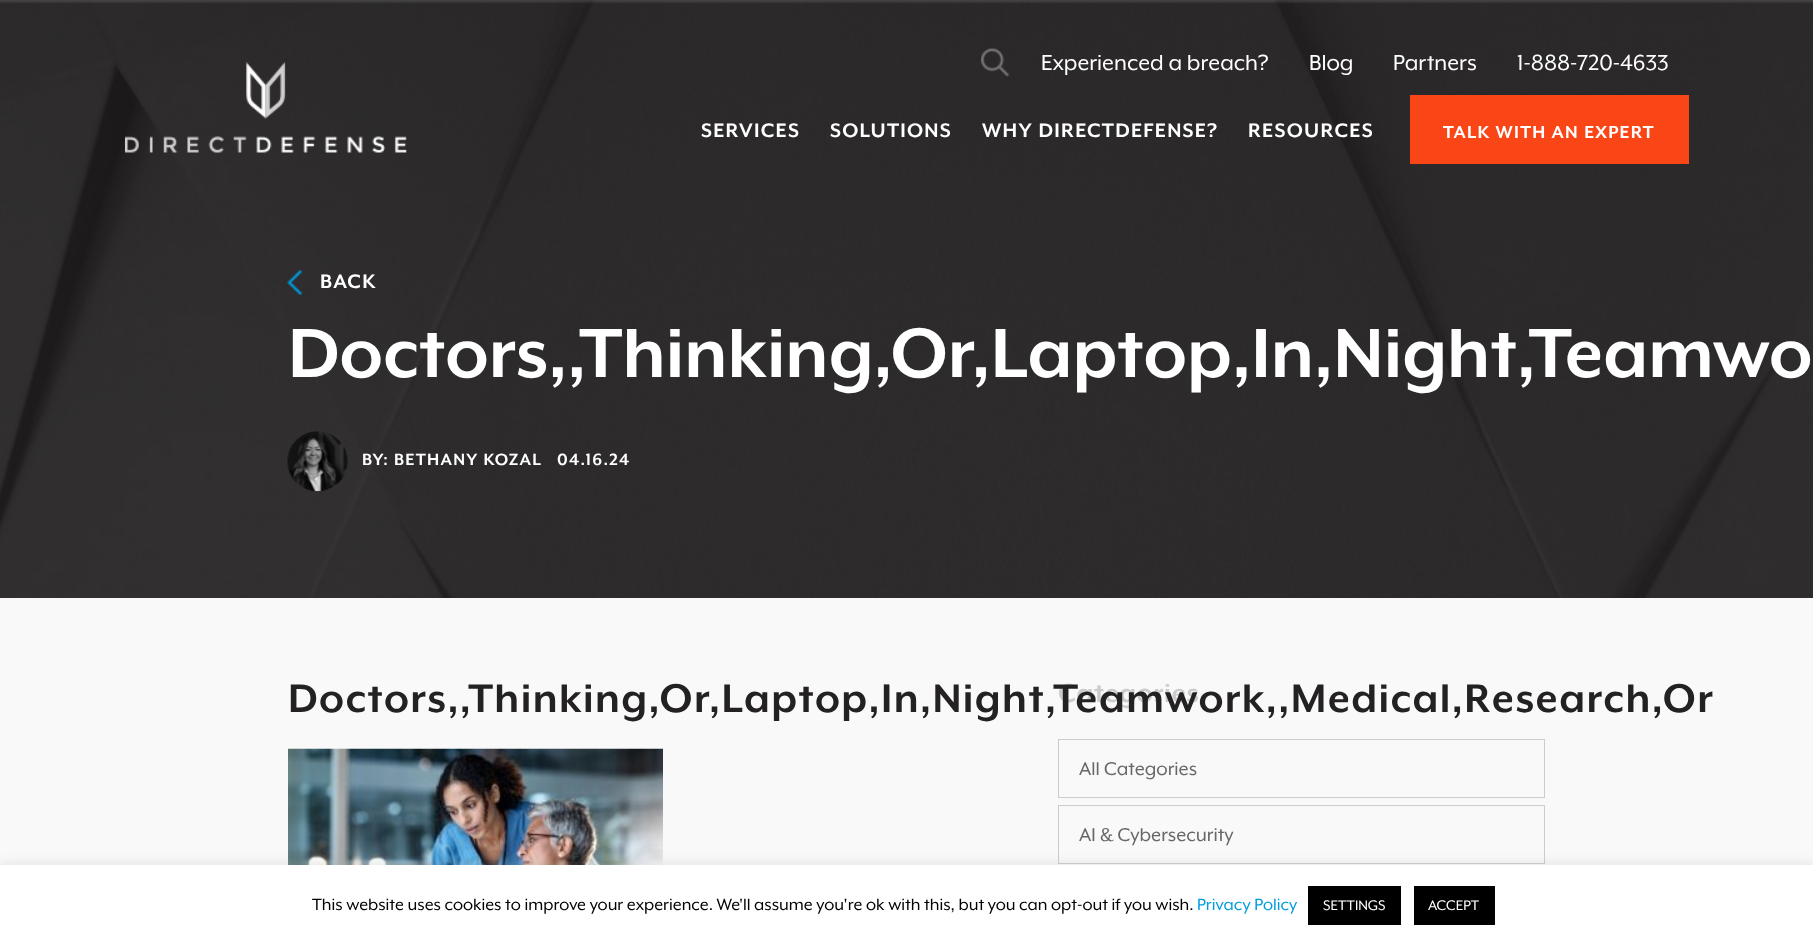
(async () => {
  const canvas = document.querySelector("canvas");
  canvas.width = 1813;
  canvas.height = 946;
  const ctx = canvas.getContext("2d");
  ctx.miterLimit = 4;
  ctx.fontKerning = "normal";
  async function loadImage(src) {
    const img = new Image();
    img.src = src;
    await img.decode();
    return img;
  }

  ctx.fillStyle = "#f9f9f9";
  ctx.fillRect(0, 0, 1813, 946);
  ctx.drawImage(await loadImage("img/3.png"), 0, 0, 1813, 598);
  ctx.drawImage(await loadImage("img/1.png"), 125, 62, 282, 91);
  ctx.drawImage(await loadImage("img/2.png"), 981, 48, 29, 29);
  ctx.fillStyle = "#fa4616";
  ctx.fillRect(1410, 95, 279, 69);
  ctx.drawImage(await loadImage("img/4.png"), 287, 270, 16, 25);
  ctx.drawImage(await loadImage("img/5.png"), 287, 431, 61, 61);
  ctx.drawImage(await loadImage("img/6.png"), 288, 748, 375, 117);
  ctx.strokeStyle = "#cccccc";
  ctx.strokeRect(1058.5, 739.5, 486, 58);
  ctx.strokeRect(1058.5, 805.5, 486, 58);
  ctx.fillStyle = "rgba(172, 171, 171, 0.3)";
  ctx.filter = "blur(6px)";
  ctx.beginPath();
  ctx.rect(0, 864, 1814, 81);
  ctx.fill();
  ctx.filter = "none";
  for (const [x, y, w, h, color] of [
    [0, 865, 1813, 81, "#ffffff"],
    [1308, 886, 93, 39, "#000000"],
    [1414, 886, 81, 39, "#000000"],
  ]) {
    ctx.fillStyle = color;
    ctx.fillRect(x, y, w, h);
  }
  ctx.font = "25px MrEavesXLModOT";
  ctx.fillStyle = "#ffffff";
  for (const [text, x, y] of [
    ["Experienced a breach?", 1041, 70],
    ["Blog", 1309, 70],
    ["Partners", 1393, 70],
    ["1-888-720-4633", 1517, 70],
  ]) {
    ctx.fillText(text, x, y);
  }
  ctx.letterSpacing = "1.25px";
  ctx.font = "bold 22.5px MrEavesXLModOT";
  for (const [text, x, y] of [
    ["SERVICES", 701, 137],
    ["SOLUTIONS", 830, 137],
    ["WHY DIRECTDEFENSE?", 982, 137],
    ["RESOURCES", 1248, 137],
  ]) {
    ctx.fillText(text, x, y);
  }
  ctx.font = "bold 20px MrEavesXLModOT";
  ctx.fillText("TALK WITH AN EXPERT", 1443, 138);
  ctx.font = "bold 22.5px MrEavesXLModOT";
  ctx.fillText("BACK", 320, 288);
  ctx.letterSpacing = "0px";
  ctx.font = "bold 80px MrEavesXLModOT";
  ctx.fillText("Doctors,,Thinking,Or,Laptop,In,Night,Teamwo", 288, 377);
  ctx.letterSpacing = "1.25px";
  ctx.font = "bold 18.75px MrEavesXLModOT";
  ctx.fillText("BY: BETHANY KOZAL", 362, 465);
  ctx.fillText("04.16.24", 557, 465);
  ctx.letterSpacing = "0.5px";
  ctx.font = "bold 30px MrEavesXLModOT";
  ctx.fillStyle = "#cccccc";
  ctx.fillText("Categories", 1058, 702);
  ctx.letterSpacing = "1.4px";
  ctx.font = "bold 46px MrEavesXLModOT";
  ctx.fillStyle = "#232121";
  ctx.fillText("Doctors,,Thinking,Or,Laptop,In,Night,Teamwork,,Medical,Research,Or", 288, 712);
  ctx.letterSpacing = "0px";
  ctx.font = "21.25px MrEavesXLModOT";
  ctx.fillStyle = "#676767";
  ctx.fillText("All Categories", 1079, 775);
  ctx.fillText("AI & Cybersecurity", 1079, 841);
  ctx.font = "18.75px MrEavesXLModOT";
  ctx.fillStyle = "#000000";
  ctx.fillText("This website uses cookies to improve your experience. We'll assume you're ok with this, but you can opt-out if you wish.", 312, 910);
  ctx.fillStyle = "#009cde";
  ctx.fillText("Privacy Policy", 1197, 910);
  ctx.font = "16px MrEavesXLModOT";
  ctx.fillStyle = "#ffffff";
  ctx.fillText("SETTINGS", 1323, 910);
  ctx.fillText("ACCEPT", 1428, 910);
})();
